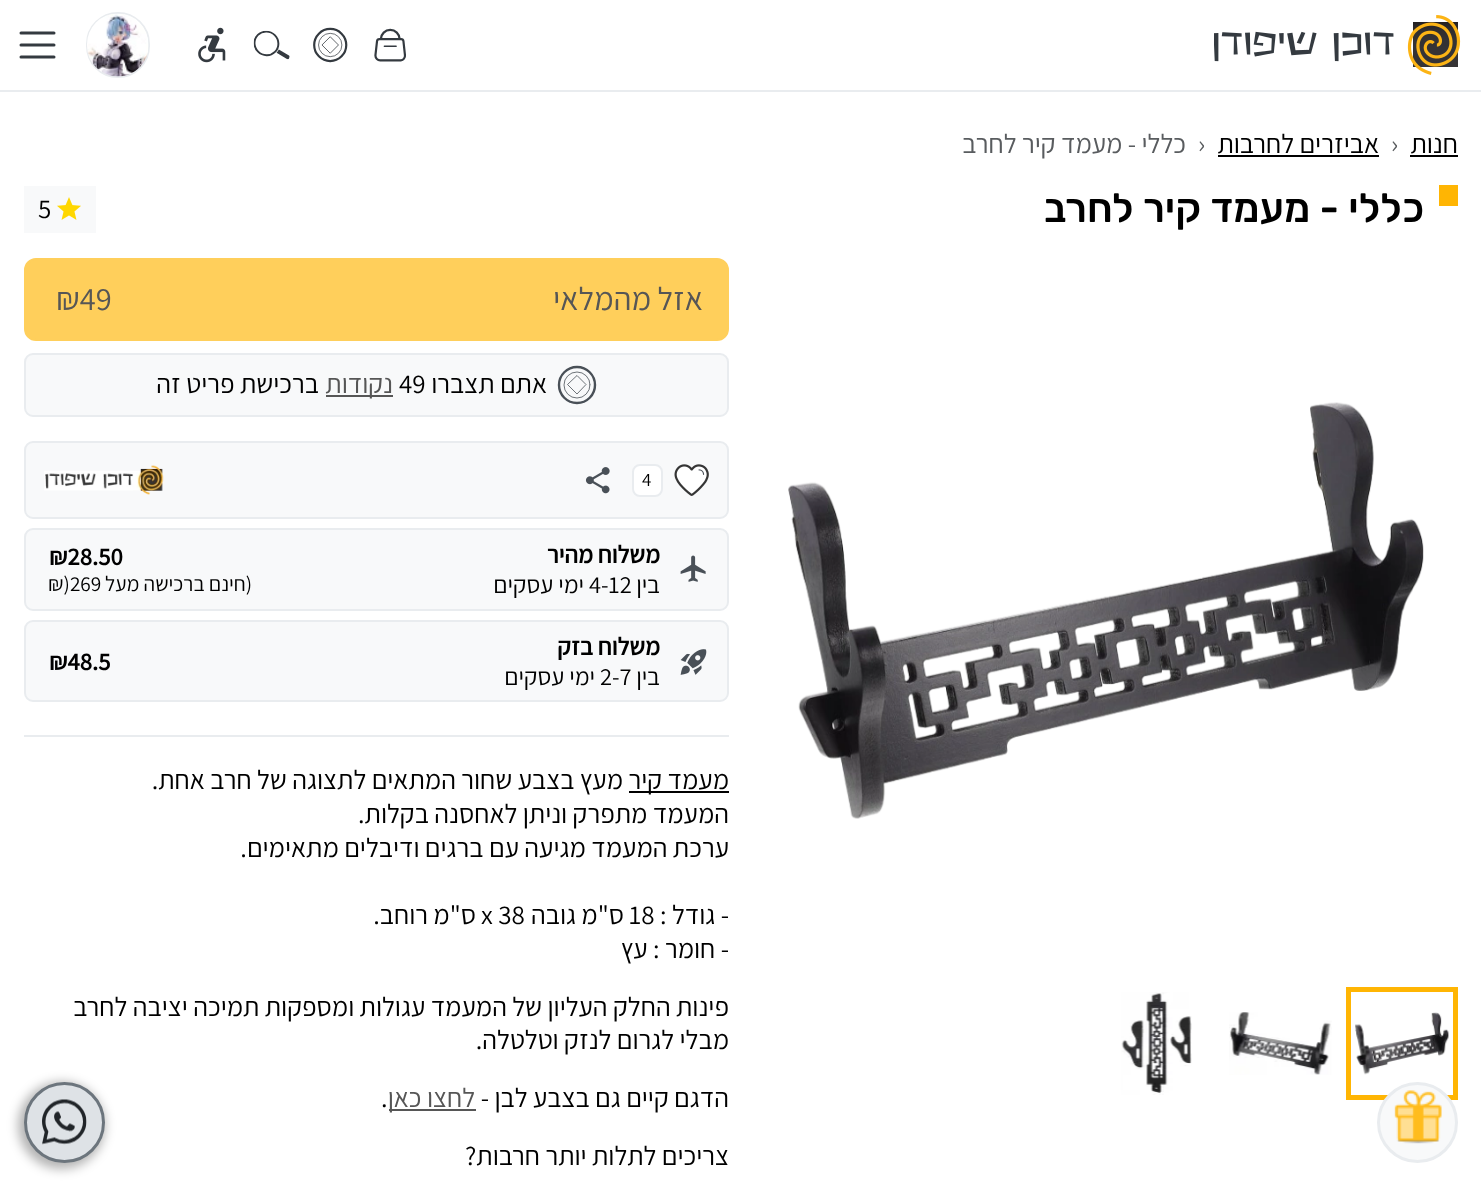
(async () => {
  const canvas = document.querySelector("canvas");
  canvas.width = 1481;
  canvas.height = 1186;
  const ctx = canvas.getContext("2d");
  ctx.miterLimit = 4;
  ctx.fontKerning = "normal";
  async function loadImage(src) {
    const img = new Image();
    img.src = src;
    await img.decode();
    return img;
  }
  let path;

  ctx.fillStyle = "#ffffff";
  ctx.fillRect(0, 0, 1481, 1186);
  ctx.fillStyle = "#e9ecef";
  ctx.fillRect(0, 90, 1481, 2);
  ctx.drawImage(await loadImage("img/1.png"), 1407, 15, 54, 60);
  ctx.drawImage(await loadImage("img/2.png"), 1214, 31, 180, 31);
  ctx.drawImage(await loadImage("img/3.png"), 374, 28, 32, 34);
  ctx.drawImage(await loadImage("img/4.png"), 313, 27, 35, 36);
  ctx.drawImage(await loadImage("img/5.png"), 253, 30, 37, 30);
  ctx.drawImage(await loadImage("img/6.png"), 198, 27, 28, 36);
  ctx.beginPath();
  ctx.roundRect(87, 13, 62, 64, 31);
  ctx.strokeStyle = "#e9ecef";
  ctx.lineWidth = 2;
  ctx.stroke();
  ctx.drawImage(await loadImage("img/7.png"), 87, 13, 62, 64);
  path = new Path2D("M21 33H54M21 45H54M21 57H54");
  ctx.strokeStyle = "#343a40";
  ctx.lineWidth = 3;
  ctx.lineCap = "round";
  ctx.stroke(path);
  for (const [x, y, w, h, color] of [
    [1410, 155, 48, 2, "#000000"],
    [1218, 155, 161, 2, "#000000"],
    [1439, 185, 19, 21, "#ffb503"],
    [24, 186, 72, 47, "#f8f9fa"],
  ]) {
    ctx.fillStyle = color;
    ctx.fillRect(x, y, w, h);
  }
  ctx.drawImage(await loadImage("img/8.png"), 57, 197, 24, 23);
  ctx.drawImage(await loadImage("img/9.png"), 788, 402, 636, 417);
  ctx.strokeStyle = "#ffb503";
  ctx.lineWidth = 5;
  ctx.strokeRect(1348.5, 989.5, 107, 108);
  ctx.drawImage(await loadImage("img/10.png"), 1355, 1012, 94, 63);
  ctx.drawImage(await loadImage("img/11.png"), 1229, 1012, 103, 63);
  ctx.drawImage(await loadImage("img/12.png"), 1121, 992, 71, 103);
  ctx.fillStyle = "#ffcf5b";
  ctx.beginPath();
  ctx.roundRect(25, 259, 703, 81, 11);
  ctx.fill();
  ctx.strokeStyle = "#ffcf5b";
  ctx.lineWidth = 2;
  ctx.stroke();
  ctx.fillStyle = "#f8f9fa";
  ctx.beginPath();
  ctx.roundRect(25, 354, 703, 62, 8);
  ctx.fill();
  ctx.strokeStyle = "#e9ecef";
  ctx.stroke();
  ctx.beginPath();
  ctx.arc(577, 385, 18, 0, Math.PI * 2);
  ctx.strokeStyle = "#495057";
  ctx.lineWidth = 2.4;
  ctx.stroke();
  ctx.beginPath();
  ctx.arc(577, 385, 13, 0, Math.PI * 2);
  ctx.lineWidth = 0.8;
  ctx.stroke();
  path = new Path2D("M577 375.5L586 384.5L577 394L567.5 384.5Z");
  ctx.lineCap = "butt";
  ctx.stroke(path);
  ctx.fillStyle = "#565656";
  ctx.fillRect(326, 395, 67, 2);
  ctx.fillStyle = "#f8f9fa";
  ctx.beginPath();
  ctx.roundRect(25, 442, 703, 76, 8);
  ctx.fill();
  ctx.strokeStyle = "#e9ecef";
  ctx.lineWidth = 2;
  ctx.stroke();
  ctx.drawImage(await loadImage("img/13.png"), 674, 464, 35, 32);
  ctx.fillStyle = "#ffffff";
  ctx.beginPath();
  ctx.roundRect(633, 465, 29, 31, 7);
  ctx.fill();
  ctx.stroke();
  ctx.drawImage(await loadImage("img/14.png"), 585, 467, 25, 27);
  ctx.drawImage(await loadImage("img/15.png"), 44, 465, 120, 30);
  ctx.fillStyle = "#f8f9fa";
  ctx.beginPath();
  ctx.roundRect(25, 529, 703, 81, 8);
  ctx.fill();
  ctx.stroke();
  ctx.drawImage(await loadImage("img/16.png"), 680, 555, 26, 27);
  ctx.beginPath();
  ctx.roundRect(25, 621, 703, 80, 8);
  ctx.fill();
  ctx.stroke();
  ctx.drawImage(await loadImage("img/17.png"), 680, 649, 27, 26);
  for (const [x, y, w, h, color] of [
    [24, 735, 705, 2, "#e9ecef"],
    [629, 791, 100, 2, "#000000"],
    [389, 1109, 87, 2, "#565656"],
  ]) {
    ctx.fillStyle = color;
    ctx.fillRect(x, y, w, h);
  }
  ctx.fillStyle = "#f8f9fa";
  ctx.beginPath();
  ctx.arc(1417.5, 1122.5, 39, 0, Math.PI * 2);
  ctx.fill();
  ctx.lineWidth = 3;
  ctx.stroke();
  ctx.drawImage(await loadImage("img/18.png"), 1394, 1090, 48, 54);
  ctx.fillStyle = "rgba(0, 0, 0, 0.3)";
  ctx.filter = "blur(5.5px)";
  ctx.beginPath();
  ctx.roundRect(18, 1082, 87, 87, 43.5);
  ctx.fill();
  ctx.filter = "none";
  ctx.fillStyle = "#dee2e6";
  ctx.beginPath();
  ctx.arc(64.5, 1122.5, 39, 0, Math.PI * 2);
  ctx.fill();
  ctx.strokeStyle = "#6c757d";
  ctx.stroke();
  ctx.drawImage(await loadImage("img/19.png"), 42, 1099, 45, 46);
  ctx.direction = "rtl";
  ctx.font = "27px Assistant";
  ctx.fillStyle = "#000000";
  ctx.fillText("חנות", 1458, 153);
  ctx.direction = "ltr";
  ctx.fillStyle = "#595c5f";
  ctx.fillText("›", 1391, 153);
  ctx.direction = "rtl";
  ctx.fillStyle = "#000000";
  ctx.fillText("אביזרים לחרבות", 1379, 153);
  ctx.direction = "ltr";
  ctx.fillStyle = "#595c5f";
  ctx.fillText("›", 1198, 153);
  ctx.direction = "rtl";
  ctx.fillText("כללי - מעמד קיר לחרב", 1186, 153);
  ctx.font = "500 40.5px Rubik";
  ctx.fillStyle = "#000000";
  ctx.fillText("כללי - מעמד קיר לחרב", 1424, 222);
  ctx.direction = "ltr";
  ctx.font = "27px Assistant";
  ctx.fillText("5", 38, 218);
  ctx.direction = "rtl";
  ctx.font = "32.5px Assistant";
  ctx.fillStyle = "#565656";
  ctx.fillText("אזל מהמלאי", 703, 310);
  ctx.direction = "ltr";
  ctx.fillText("₪49", 56, 310);
  ctx.direction = "rtl";
  ctx.font = "27px Assistant";
  ctx.fillStyle = "#000000";
  ctx.fillText("אתם תצברו", 547, 393);
  ctx.direction = "ltr";
  ctx.fillText("49", 399, 393);
  ctx.direction = "rtl";
  ctx.fillStyle = "#565656";
  ctx.fillText("נקודות", 393, 393);
  ctx.fillStyle = "#000000";
  ctx.fillText("ברכישת פריט זה", 319, 393);
  ctx.direction = "ltr";
  ctx.font = "19px Assistant";
  ctx.fillText("4", 642, 486);
  ctx.direction = "rtl";
  ctx.font = "bold 24.5px Assistant";
  ctx.fillText("משלוח מהיר", 660, 563);
  ctx.font = "24.5px Assistant";
  ctx.fillText("בין", 660, 593);
  ctx.direction = "ltr";
  ctx.fillText("4-12", 589, 593);
  ctx.direction = "rtl";
  ctx.fillText("ימי עסקים", 584, 593);
  ctx.direction = "ltr";
  ctx.font = "bold 24.5px Assistant";
  ctx.fillText("₪28.50", 49, 565);
  ctx.direction = "rtl";
  ctx.font = "21.25px Assistant";
  ctx.fillText("(חינם ברכישה מעל", 252, 591);
  ctx.direction = "ltr";
  ctx.fillText("₪)269", 48, 591);
  ctx.direction = "rtl";
  ctx.font = "bold 24.5px Assistant";
  ctx.fillText("משלוח בזק", 660, 655);
  ctx.font = "24.5px Assistant";
  ctx.fillText("בין", 660, 685);
  ctx.direction = "ltr";
  ctx.fillText("2-7", 600, 685);
  ctx.direction = "rtl";
  ctx.fillText("ימי עסקים", 595, 685);
  ctx.direction = "ltr";
  ctx.font = "bold 24.5px Assistant";
  ctx.fillText("₪48.5", 49, 670);
  ctx.direction = "rtl";
  ctx.font = "27px Assistant";
  for (const [text, x, y] of [
    ["מעמד קיר", 729, 789],
    ["מעץ בצבע שחור המתאים לתצוגה של חרב אחת.", 623, 789],
    ["המעמד מתפרק וניתן לאחסנה בקלות.", 729, 823],
    ["ערכת המעמד מגיעה עם ברגים ודיבלים מתאימים.", 729, 857],
    ["- גודל :", 729, 924],
  ]) {
    ctx.fillText(text, x, y);
  }
  ctx.direction = "ltr";
  ctx.fillText("18", 629, 924);
  ctx.direction = "rtl";
  ctx.fillText("ס\"מ גובה", 624, 924);
  ctx.direction = "ltr";
  ctx.fillText("x 38", 481, 924);
  ctx.direction = "rtl";
  for (const [text, x, y] of [
    ["ס\"מ רוחב.", 476, 924],
    ["- חומר : עץ", 729, 958],
    ["פינות החלק העליון של המעמד עגולות ומספקות תמיכה יציבה לחרב", 729, 1016],
    ["מבלי לגרום לנזק וטלטלה.", 729, 1049],
    ["הדגם קיים גם בצבע לבן -", 729, 1107],
  ]) {
    ctx.fillText(text, x, y);
  }
  ctx.fillStyle = "#565656";
  ctx.fillText("לחצו כאן", 475, 1107);
  ctx.direction = "ltr";
  ctx.fillStyle = "#000000";
  ctx.fillText(".", 381, 1107);
  ctx.direction = "rtl";
  ctx.fillText("צריכים לתלות יותר חרבות?", 729, 1165);
})();
